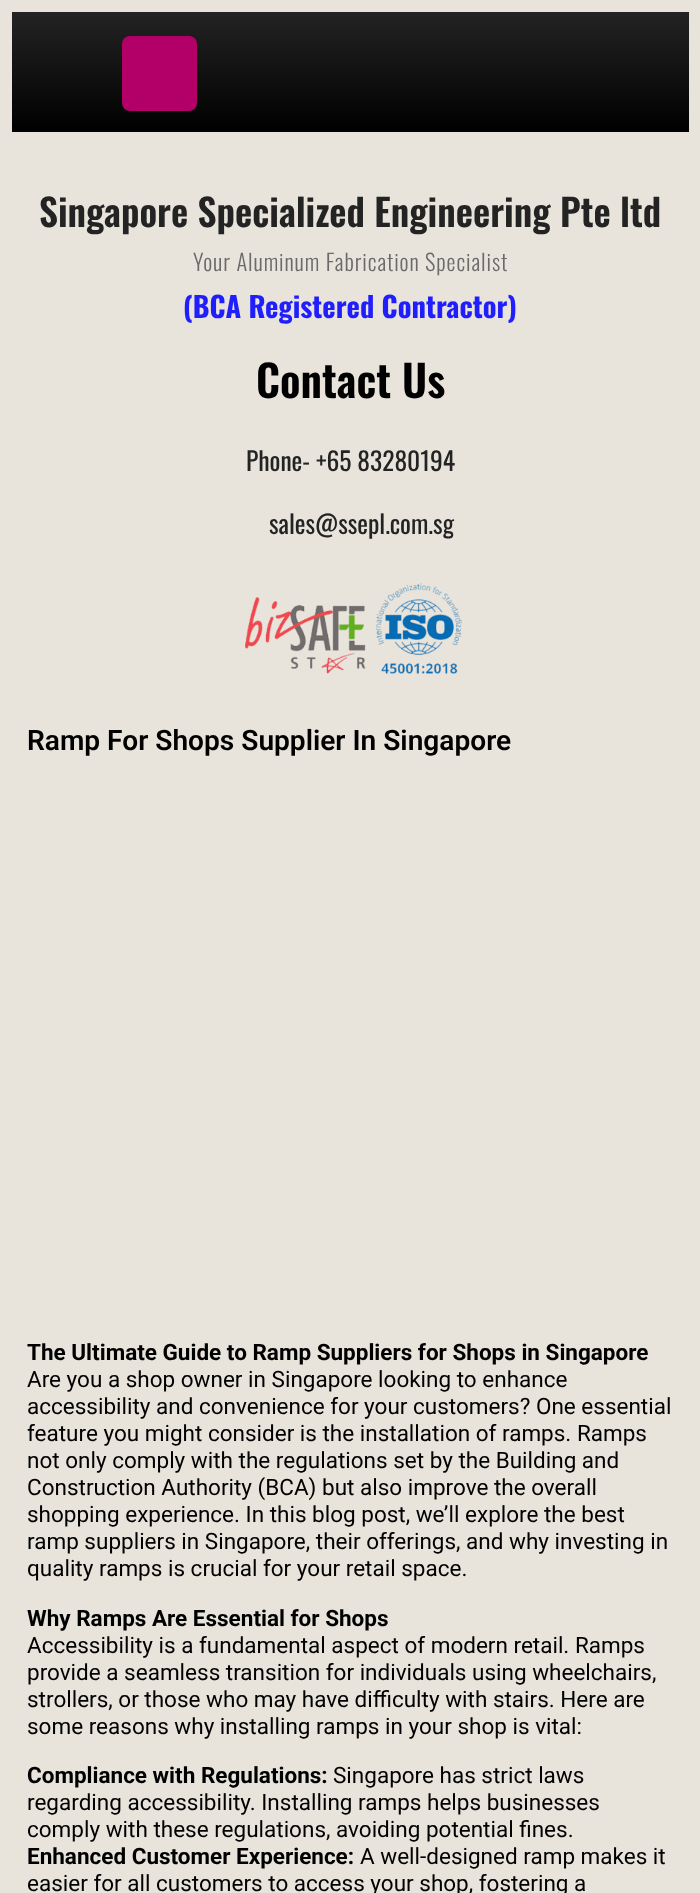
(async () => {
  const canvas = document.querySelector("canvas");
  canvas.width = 700;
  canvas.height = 1893;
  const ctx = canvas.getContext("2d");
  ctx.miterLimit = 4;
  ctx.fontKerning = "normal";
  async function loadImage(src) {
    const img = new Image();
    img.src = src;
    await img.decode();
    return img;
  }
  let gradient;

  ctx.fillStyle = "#e8e4dc";
  ctx.fillRect(0, 0, 700, 1893);
  gradient = ctx.createLinearGradient(350, 12, 350, 132);
  gradient.addColorStop(0, "#232323");
  gradient.addColorStop(1, "#000000");
  ctx.fillStyle = gradient;
  ctx.fillRect(12, 12, 677, 120);
  ctx.fillStyle = "#b30069";
  ctx.beginPath();
  ctx.roundRect(122, 36, 75, 75, 8);
  ctx.fill();
  ctx.drawImage(await loadImage("img/1.png"), 245, 583, 217, 91);
  ctx.font = "600 37.5px Oswald";
  ctx.fillStyle = "#232323";
  ctx.fillText("Singapore Specialized Engineering Pte ltd", 39, 227);
  ctx.letterSpacing = "0.9px";
  ctx.font = "300 22.5px Oswald";
  ctx.fillStyle = "#6a6a6a";
  ctx.fillText("Your Aluminum Fabrication Specialist", 193, 271);
  ctx.letterSpacing = "0px";
  ctx.font = "bold 28.5px Oswald";
  ctx.fillStyle = "#201efc";
  ctx.fillText("(BCA Registered Contractor)", 183, 318);
  ctx.font = "600 43.5px Oswald";
  ctx.fillStyle = "#000000";
  ctx.fillText("Contact Us", 256, 398);
  ctx.font = "25.5px Oswald";
  ctx.fillStyle = "#232323";
  ctx.fillText("Phone- +65 83280194", 246, 471);
  ctx.fillText("sales@ssepl.com.sg", 269, 534);
  ctx.font = "600 28.1px Roboto";
  ctx.fillStyle = "#000000";
  ctx.fillText("Ramp For Shops Supplier In Singapore", 27, 750);
  ctx.font = "bold 22.5px Roboto";
  ctx.fillText("The Ultimate Guide to Ramp Suppliers for Shops in Singapore", 27, 1360);
  ctx.font = "22.5px Roboto";
  for (const [text, x, y] of [
    ["Are you a shop owner in Singapore looking to enhance", 27, 1387],
    ["accessibility and convenience for your customers? One essential", 27, 1414],
    ["feature you might consider is the installation of ramps. Ramps", 27, 1441],
    ["not only comply with the regulations set by the Building and", 27, 1468],
    ["Construction Authority (BCA) but also improve the overall", 27, 1495],
    ["shopping experience. In this blog post, we’ll explore the best", 27, 1522],
    ["ramp suppliers in Singapore, their offerings, and why investing in", 27, 1549],
    ["quality ramps is crucial for your retail space.", 27, 1576],
  ]) {
    ctx.fillText(text, x, y);
  }
  ctx.font = "bold 22.5px Roboto";
  ctx.fillText("Why Ramps Are Essential for Shops", 27, 1626);
  ctx.font = "22.5px Roboto";
  for (const [text, x, y] of [
    ["Accessibility is a fundamental aspect of modern retail. Ramps", 27, 1653],
    ["provide a seamless transition for individuals using wheelchairs,", 27, 1680],
    ["strollers, or those who may have difficulty with stairs. Here are", 27, 1707],
    ["some reasons why installing ramps in your shop is vital:", 27, 1734],
  ]) {
    ctx.fillText(text, x, y);
  }
  ctx.font = "bold 22.5px Roboto";
  ctx.fillText("Compliance with Regulations:", 27, 1783);
  ctx.font = "22.5px Roboto";
  for (const [text, x, y] of [
    ["Singapore has strict laws", 333, 1783],
    ["regarding accessibility. Installing ramps helps businesses", 27, 1810],
    ["comply with these regulations, avoiding potential fines.", 27, 1837],
  ]) {
    ctx.fillText(text, x, y);
  }
  ctx.font = "bold 22.5px Roboto";
  ctx.fillText("Enhanced Customer Experience:", 27, 1864);
  ctx.font = "22.5px Roboto";
  ctx.fillText("A well-designed ramp makes it", 360, 1864);
  ctx.fillText("easier for all customers to access your shop, fostering a", 27, 1891);
})();
